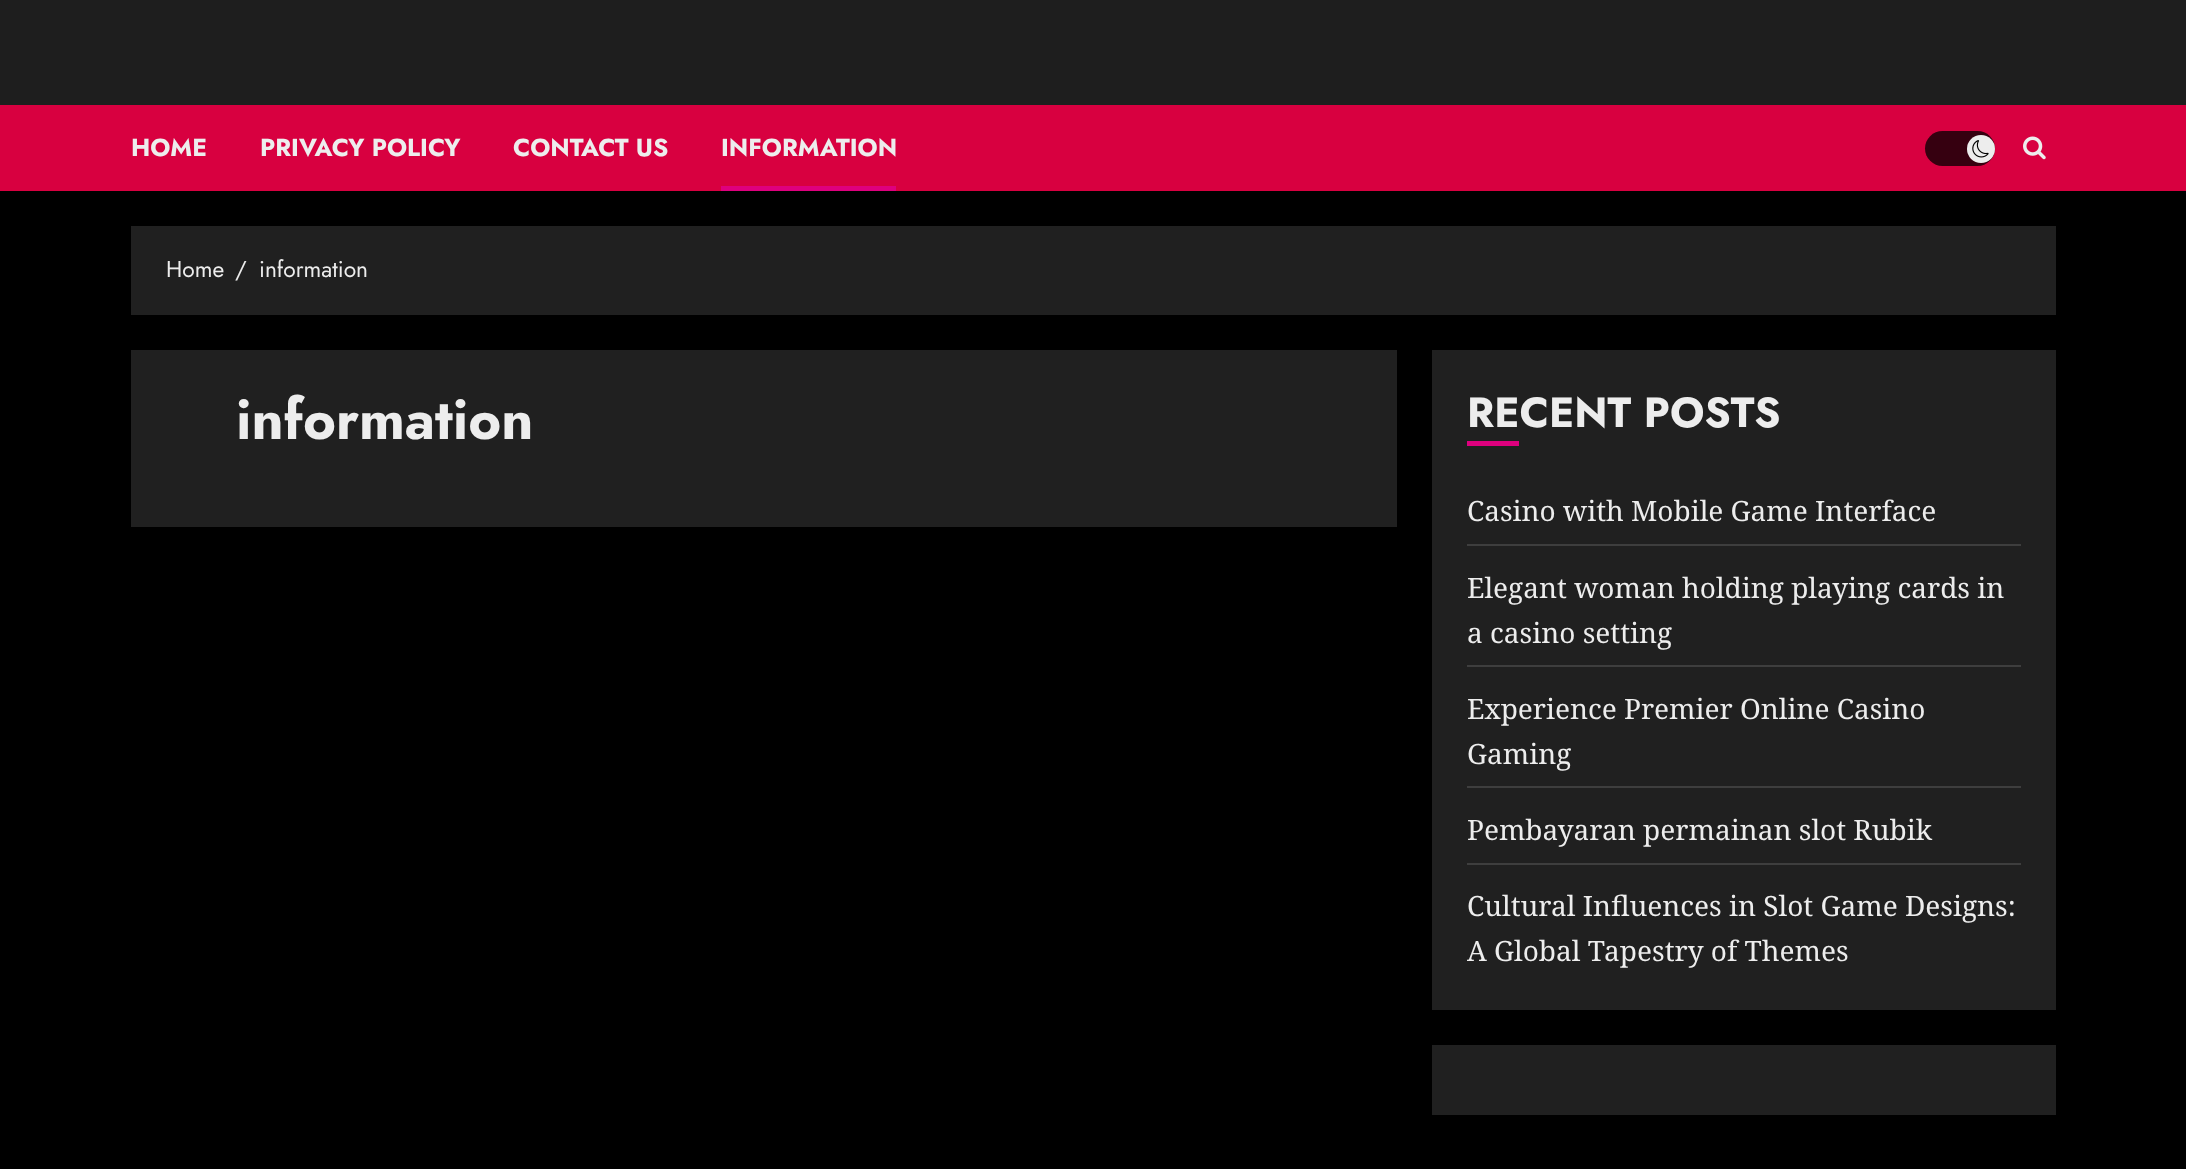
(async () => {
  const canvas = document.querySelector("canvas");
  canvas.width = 2186;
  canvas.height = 1169;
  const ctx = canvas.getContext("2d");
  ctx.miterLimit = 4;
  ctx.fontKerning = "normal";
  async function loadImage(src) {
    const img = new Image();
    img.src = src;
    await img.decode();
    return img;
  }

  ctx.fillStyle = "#000000";
  ctx.fillRect(0, 0, 2186, 1169);
  for (const [x, y, w, h, color] of [
    [0, 0, 2186, 105, "#1e1e1e"],
    [0, 105, 2186, 86, "#d80040"],
    [721, 186, 175, 5, "#de007e"],
  ]) {
    ctx.fillStyle = color;
    ctx.fillRect(x, y, w, h);
  }
  ctx.fillStyle = "#360010";
  ctx.beginPath();
  ctx.roundRect(1925, 131, 70, 35, 17.5);
  ctx.fill();
  ctx.fillStyle = "#ededed";
  ctx.beginPath();
  ctx.arc(1981, 149, 14, 0, Math.PI * 2);
  ctx.fill();
  ctx.drawImage(await loadImage("img/1.png"), 1972, 140, 17, 18);
  ctx.drawImage(await loadImage("img/2.png"), 2023, 136, 23, 24);
  for (const [x, y, w, h, color] of [
    [131, 226, 1925, 89, "#202020"],
    [131, 350, 1266, 177, "#202020"],
    [1432, 350, 624, 660, "#202020"],
    [1467, 441, 52, 5, "#de007e"],
    [1467, 544, 554, 2, "#3e3e3e"],
    [1467, 665, 554, 2, "#3e3e3e"],
    [1467, 786, 554, 2, "#3e3e3e"],
    [1467, 863, 554, 2, "#3e3e3e"],
    [1432, 1045, 624, 70, "#202020"],
  ]) {
    ctx.fillStyle = color;
    ctx.fillRect(x, y, w, h);
  }
  ctx.font = "bold 24.5px Jost";
  ctx.fillStyle = "#ededed";
  for (const [text, x, y] of [
    ["HOME", 131, 156],
    ["PRIVACY POLICY", 260, 156],
    ["CONTACT US", 513, 156],
    ["INFORMATION", 721, 156],
  ]) {
    ctx.fillText(text, x, y);
  }
  ctx.font = "22.75px Jost";
  for (const [text, x, y] of [
    ["Home", 166, 277],
    ["/", 235, 277],
    ["information", 259, 277],
  ]) {
    ctx.fillText(text, x, y);
  }
  ctx.font = "bold 56px Jost";
  ctx.fillText("information", 236, 439);
  ctx.font = "bold 42px Jost";
  ctx.fillText("RECENT POSTS", 1467, 427);
  ctx.font = "28px Noto Serif";
  for (const [text, x, y] of [
    ["Casino with Mobile Game Interface", 1467, 521],
    ["Elegant woman holding playing cards in", 1467, 598],
    ["a casino setting", 1467, 643],
    ["Experience Premier Online Casino", 1467, 719],
    ["Gaming", 1467, 764],
    ["Pembayaran permainan slot Rubik", 1467, 840],
    ["Cultural Influences in Slot Game Designs:", 1467, 916],
    ["A Global Tapestry of Themes", 1467, 961],
  ]) {
    ctx.fillText(text, x, y);
  }
})();
